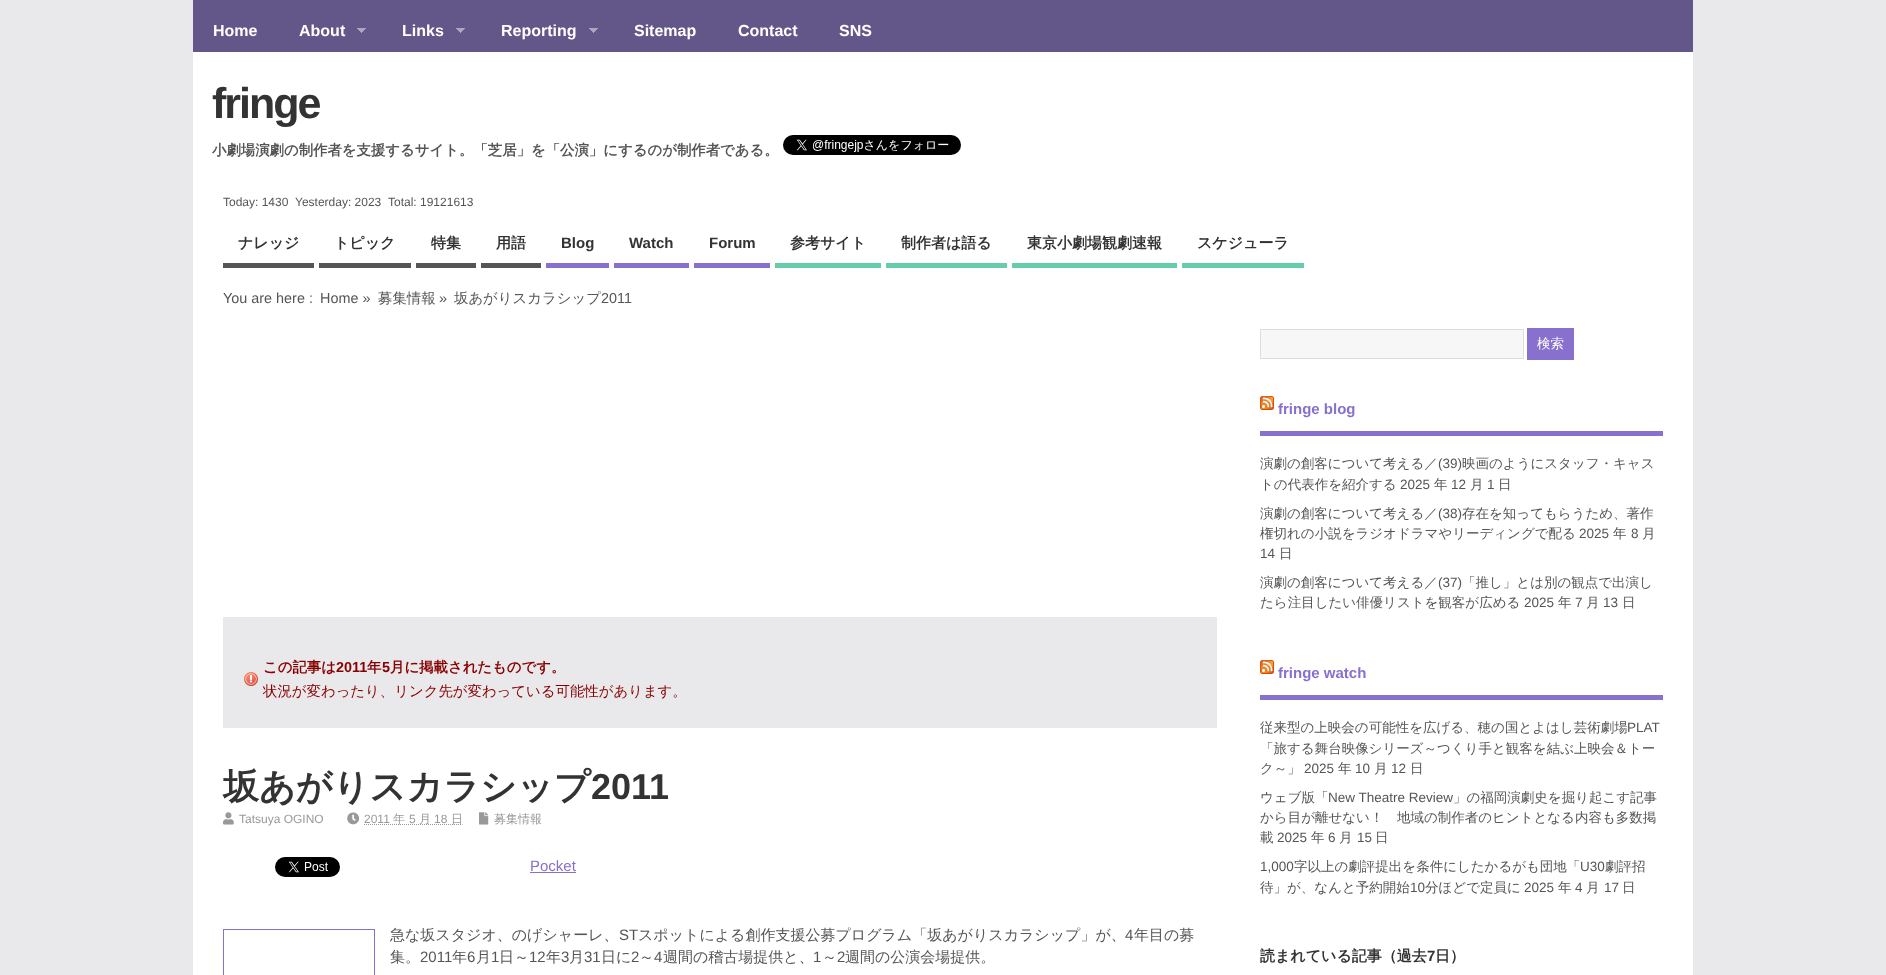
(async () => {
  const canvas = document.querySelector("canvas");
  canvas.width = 1886;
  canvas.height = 975;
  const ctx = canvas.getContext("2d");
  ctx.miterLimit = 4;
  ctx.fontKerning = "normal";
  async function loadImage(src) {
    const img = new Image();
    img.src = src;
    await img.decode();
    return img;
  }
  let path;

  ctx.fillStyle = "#e9e9eb";
  ctx.fillRect(0, 0, 1886, 975);
  ctx.fillStyle = "#63578a";
  ctx.fillRect(193, 0, 1500, 52);
  ctx.drawImage(await loadImage("img/1.png"), 357, 28, 9, 5);
  ctx.drawImage(await loadImage("img/1.png"), 456, 28, 9, 5);
  ctx.drawImage(await loadImage("img/1.png"), 589, 28, 9, 5);
  ctx.fillStyle = "#ffffff";
  ctx.fillRect(193, 52, 1500, 923);
  ctx.drawImage(await loadImage("img/2.png"), 783, 135, 178, 20);
  for (const [x, y, w, h, color] of [
    [223, 263, 91, 5, "#555555"],
    [319, 263, 92, 5, "#555555"],
    [416, 263, 60, 5, "#555555"],
    [481, 263, 60, 5, "#555555"],
    [546, 263, 63, 5, "#8770ce"],
    [614, 263, 75, 5, "#8770ce"],
    [694, 263, 76, 5, "#8770ce"],
    [775, 263, 106, 5, "#66cdaa"],
    [886, 263, 121, 5, "#66cdaa"],
    [1012, 263, 165, 5, "#66cdaa"],
    [1182, 263, 122, 5, "#66cdaa"],
    [223, 617, 994, 111, "#e9e9eb"],
  ]) {
    ctx.fillStyle = color;
    ctx.fillRect(x, y, w, h);
  }
  ctx.drawImage(await loadImage("img/3.png"), 244, 672, 14, 14);
  ctx.drawImage(await loadImage("img/4.png"), 223, 812, 11, 13);
  ctx.drawImage(await loadImage("img/5.png"), 347, 812, 13, 13);
  path = new Path2D("M364 824.5H462.5");
  ctx.strokeStyle = "#999999";
  ctx.setLineDash([1, 1]);
  ctx.stroke(path);
  ctx.drawImage(await loadImage("img/6.png"), 479, 812, 10, 13);
  ctx.drawImage(await loadImage("img/7.png"), 275, 857, 65, 20);
  ctx.fillStyle = "#8770ce";
  ctx.fillRect(530, 872, 46, 1);
  ctx.strokeStyle = "#8770ce";
  ctx.setLineDash([]);
  ctx.strokeRect(223.5, 929.5, 151, 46);
  ctx.fillStyle = "#f7f7f7";
  ctx.beginPath();
  ctx.rect(1260.5, 329.5, 263, 29);
  ctx.fill();
  ctx.strokeStyle = "#dddddd";
  ctx.stroke();
  ctx.fillStyle = "#8770ce";
  ctx.fillRect(1527, 328, 47, 32);
  ctx.fillRect(1260, 431, 403, 5);
  ctx.drawImage(await loadImage("img/8.png"), 1260, 396, 14, 14);
  ctx.fillRect(1260, 695, 403, 5);
  ctx.drawImage(await loadImage("img/8.png"), 1260, 660, 14, 14);
  ctx.font = "bold 16px Liberation Sans";
  ctx.fillStyle = "#ffffff";
  for (const [text, x, y] of [
    ["Home", 213, 36],
    ["About", 299, 36],
    ["Links", 402, 36],
    ["Reporting", 501, 36],
    ["Sitemap", 634, 36],
    ["Contact", 738, 36],
    ["SNS", 839, 36],
  ]) {
    ctx.fillText(text, x, y);
  }
  ctx.letterSpacing = "-2px";
  ctx.font = "bold 43px Liberation Sans";
  ctx.fillStyle = "#333333";
  ctx.fillText("fringe", 212, 118);
  ctx.letterSpacing = "0px";
  ctx.font = "bold 14.4px WenQuanYi Zen Hei";
  ctx.fillStyle = "#555555";
  ctx.fillText("小劇場演劇の制作者を支援するサイト。「芝居」を「公演」にするのが制作者である。", 212, 155);
  ctx.font = "12px Liberation Sans";
  for (const [text, x, y] of [
    ["Today: 1430", 223, 206],
    ["Yesterday: 2023", 295, 206],
    ["Total: 19121613", 388, 206],
  ]) {
    ctx.fillText(text, x, y);
  }
  ctx.font = "bold 15px WenQuanYi Zen Hei";
  ctx.fillStyle = "#333333";
  for (const [text, x, y] of [
    ["ナレッジ", 238, 248],
    ["トピック", 334, 248],
    ["特集", 431, 248],
    ["用語", 496, 248],
  ]) {
    ctx.fillText(text, x, y);
  }
  ctx.font = "bold 15px Liberation Sans";
  for (const [text, x, y] of [
    ["Blog", 561, 248],
    ["Watch", 629, 248],
    ["Forum", 709, 248],
  ]) {
    ctx.fillText(text, x, y);
  }
  ctx.font = "bold 15px WenQuanYi Zen Hei";
  for (const [text, x, y] of [
    ["参考サイト", 790, 248],
    ["制作者は語る", 901, 248],
    ["東京小劇場観劇速報", 1027, 248],
    ["スケジューラ", 1197, 248],
  ]) {
    ctx.fillText(text, x, y);
  }
  ctx.font = "14.4px Liberation Sans";
  ctx.fillStyle = "#555555";
  ctx.fillText("You are here :", 223, 303);
  ctx.fillText("Home »", 320, 303);
  ctx.font = "500 14.4px WenQuanYi Zen Hei";
  ctx.fillText("募集情報", 378, 303);
  ctx.font = "14.4px Liberation Sans";
  ctx.fillText("»", 439, 303);
  ctx.font = "500 14.4px WenQuanYi Zen Hei";
  ctx.fillText("坂あがりスカラシップ", 454, 303);
  ctx.font = "14.4px Liberation Sans";
  ctx.fillText("2011", 601, 303);
  ctx.font = "bold 14.4px WenQuanYi Zen Hei";
  ctx.fillStyle = "#880000";
  ctx.fillText("この記事は", 263, 672);
  ctx.font = "bold 14.4px Liberation Sans";
  ctx.fillText("2011", 336, 672);
  ctx.font = "bold 14.4px WenQuanYi Zen Hei";
  ctx.fillText("年", 367, 672);
  ctx.font = "bold 14.4px Liberation Sans";
  ctx.fillText("5", 382, 672);
  ctx.font = "bold 14.4px WenQuanYi Zen Hei";
  ctx.fillText("月に掲載されたものです。", 390, 672);
  ctx.font = "500 14.4px WenQuanYi Zen Hei";
  ctx.fillText("状況が変わったり、リンク先が変わっている可能性があります。", 263, 696);
  ctx.font = "bold 36px WenQuanYi Zen Hei";
  ctx.fillStyle = "#333333";
  ctx.fillText("坂あがりスカラシップ", 223, 799);
  ctx.font = "bold 36px Liberation Sans";
  ctx.fillText("2011", 591, 799);
  ctx.font = "12px Liberation Sans";
  ctx.fillStyle = "#999999";
  ctx.fillText("Tatsuya OGINO", 239, 823);
  ctx.fillText("2011", 364, 823);
  ctx.font = "500 12px WenQuanYi Zen Hei";
  ctx.fillText("年", 393, 823);
  ctx.font = "12px Liberation Sans";
  ctx.fillText("5", 409, 823);
  ctx.font = "500 12px WenQuanYi Zen Hei";
  ctx.fillText("月", 419, 823);
  ctx.font = "12px Liberation Sans";
  ctx.fillText("18", 434, 823);
  ctx.font = "500 12px WenQuanYi Zen Hei";
  ctx.fillText("日", 451, 823);
  ctx.fillText("募集情報", 494, 823);
  ctx.font = "15px Liberation Sans";
  ctx.fillStyle = "#8770ce";
  ctx.fillText("Pocket", 530, 871);
  ctx.font = "500 15px WenQuanYi Zen Hei";
  ctx.fillStyle = "#555555";
  ctx.fillText("急な坂スタジオ、のげシャーレ、", 390, 940);
  ctx.font = "15px Liberation Sans";
  ctx.fillText("ST", 619, 940);
  ctx.font = "500 15px WenQuanYi Zen Hei";
  ctx.fillText("スポットによる創作支援公募プログラム「坂あがりスカラシップ」が、", 638, 940);
  ctx.font = "15px Liberation Sans";
  ctx.fillText("4", 1125, 940);
  ctx.font = "500 15px WenQuanYi Zen Hei";
  ctx.fillText("年目の募", 1134, 940);
  ctx.fillText("集。", 390, 962);
  ctx.font = "15px Liberation Sans";
  ctx.fillText("2011", 420, 962);
  ctx.font = "500 15px WenQuanYi Zen Hei";
  ctx.fillText("年", 452, 962);
  ctx.font = "15px Liberation Sans";
  ctx.fillText("6", 467, 962);
  ctx.font = "500 15px WenQuanYi Zen Hei";
  ctx.fillText("月", 476, 962);
  ctx.font = "15px Liberation Sans";
  ctx.fillText("1", 491, 962);
  ctx.font = "500 15px WenQuanYi Zen Hei";
  ctx.fillText("日～", 499, 962);
  ctx.font = "15px Liberation Sans";
  ctx.fillText("12", 529, 962);
  ctx.font = "500 15px WenQuanYi Zen Hei";
  ctx.fillText("年", 546, 962);
  ctx.font = "15px Liberation Sans";
  ctx.fillText("3", 561, 962);
  ctx.font = "500 15px WenQuanYi Zen Hei";
  ctx.fillText("月", 569, 962);
  ctx.font = "15px Liberation Sans";
  ctx.fillText("31", 584, 962);
  ctx.font = "500 15px WenQuanYi Zen Hei";
  ctx.fillText("日に", 601, 962);
  ctx.font = "15px Liberation Sans";
  ctx.fillText("2", 631, 962);
  ctx.font = "500 15px WenQuanYi Zen Hei";
  ctx.fillText("～", 639, 962);
  ctx.font = "15px Liberation Sans";
  ctx.fillText("4", 654, 962);
  ctx.font = "500 15px WenQuanYi Zen Hei";
  ctx.fillText("週間の稽古場提供と、", 663, 962);
  ctx.font = "15px Liberation Sans";
  ctx.fillText("1", 813, 962);
  ctx.font = "500 15px WenQuanYi Zen Hei";
  ctx.fillText("～", 822, 962);
  ctx.font = "15px Liberation Sans";
  ctx.fillText("2", 837, 962);
  ctx.font = "500 15px WenQuanYi Zen Hei";
  ctx.fillText("週間の公演会場提供。", 845, 962);
  ctx.font = "500 13.5px WenQuanYi Zen Hei";
  ctx.fillStyle = "#ffffff";
  ctx.fillText("検索", 1537, 348);
  ctx.font = "bold 15px Liberation Sans";
  ctx.fillStyle = "#8770ce";
  ctx.fillText("fringe blog", 1278, 414);
  ctx.font = "500 13.5px WenQuanYi Zen Hei";
  ctx.fillStyle = "#555555";
  ctx.fillText("演劇の創客について考える／", 1260, 468);
  ctx.font = "13.5px Liberation Sans";
  ctx.fillText("(39)", 1438, 468);
  ctx.font = "500 13.5px WenQuanYi Zen Hei";
  ctx.fillText("映画のようにスタッフ・キャス", 1462, 468);
  ctx.fillText("トの代表作を紹介する", 1260, 489);
  ctx.font = "13.5px Liberation Sans";
  ctx.fillText("2025", 1400, 489);
  ctx.font = "500 13.5px WenQuanYi Zen Hei";
  ctx.fillText("年", 1434, 489);
  ctx.font = "13.5px Liberation Sans";
  ctx.fillText("12", 1451, 489);
  ctx.font = "500 13.5px WenQuanYi Zen Hei";
  ctx.fillText("月", 1470, 489);
  ctx.font = "13.5px Liberation Sans";
  ctx.fillText("1", 1487, 489);
  ctx.font = "500 13.5px WenQuanYi Zen Hei";
  ctx.fillText("日", 1498, 489);
  ctx.fillText("演劇の創客について考える／", 1260, 518);
  ctx.font = "13.5px Liberation Sans";
  ctx.fillText("(38)", 1438, 518);
  ctx.font = "500 13.5px WenQuanYi Zen Hei";
  ctx.fillText("存在を知ってもらうため、著作", 1462, 518);
  ctx.fillText("権切れの小説をラジオドラマやリーディングで配る", 1260, 538);
  ctx.font = "13.5px Liberation Sans";
  ctx.fillText("2025", 1579, 538);
  ctx.font = "500 13.5px WenQuanYi Zen Hei";
  ctx.fillText("年", 1613, 538);
  ctx.font = "13.5px Liberation Sans";
  ctx.fillText("8", 1631, 538);
  ctx.font = "500 13.5px WenQuanYi Zen Hei";
  ctx.fillText("月", 1642, 538);
  ctx.font = "13.5px Liberation Sans";
  ctx.fillText("14", 1260, 558);
  ctx.font = "500 13.5px WenQuanYi Zen Hei";
  ctx.fillText("日", 1279, 558);
  ctx.fillText("演劇の創客について考える／", 1260, 587);
  ctx.font = "13.5px Liberation Sans";
  ctx.fillText("(37)", 1438, 587);
  ctx.font = "500 13.5px WenQuanYi Zen Hei";
  ctx.fillText("「推し」とは別の観点で出演し", 1462, 587);
  ctx.fillText("たら注目したい俳優リストを観客が広める", 1260, 607);
  ctx.font = "13.5px Liberation Sans";
  ctx.fillText("2025", 1524, 607);
  ctx.font = "500 13.5px WenQuanYi Zen Hei";
  ctx.fillText("年", 1558, 607);
  ctx.font = "13.5px Liberation Sans";
  ctx.fillText("7", 1575, 607);
  ctx.font = "500 13.5px WenQuanYi Zen Hei";
  ctx.fillText("月", 1586, 607);
  ctx.font = "13.5px Liberation Sans";
  ctx.fillText("13", 1603, 607);
  ctx.font = "500 13.5px WenQuanYi Zen Hei";
  ctx.fillText("日", 1622, 607);
  ctx.font = "bold 15px Liberation Sans";
  ctx.fillStyle = "#8770ce";
  ctx.fillText("fringe watch", 1278, 678);
  ctx.font = "500 13.5px WenQuanYi Zen Hei";
  ctx.fillStyle = "#555555";
  ctx.fillText("従来型の上映会の可能性を広げる、穂の国とよはし芸術劇場", 1260, 732);
  ctx.font = "13.5px Liberation Sans";
  ctx.fillText("PLAT", 1627, 732);
  ctx.font = "500 13.5px WenQuanYi Zen Hei";
  ctx.fillText("「旅する舞台映像シリーズ～つくり手と観客を結ぶ上映会＆トー", 1260, 753);
  ctx.fillText("ク～」", 1260, 773);
  ctx.font = "13.5px Liberation Sans";
  ctx.fillText("2025", 1304, 773);
  ctx.font = "500 13.5px WenQuanYi Zen Hei";
  ctx.fillText("年", 1338, 773);
  ctx.font = "13.5px Liberation Sans";
  ctx.fillText("10", 1355, 773);
  ctx.font = "500 13.5px WenQuanYi Zen Hei";
  ctx.fillText("月", 1374, 773);
  ctx.font = "13.5px Liberation Sans";
  ctx.fillText("12", 1391, 773);
  ctx.font = "500 13.5px WenQuanYi Zen Hei";
  ctx.fillText("日", 1410, 773);
  ctx.fillText("ウェブ版「", 1260, 802);
  ctx.font = "13.5px Liberation Sans";
  ctx.fillText("New Theatre Review", 1328, 802);
  ctx.font = "500 13.5px WenQuanYi Zen Hei";
  for (const [text, x, y] of [
    ["」の福岡演劇史を掘り起こす記事", 1453, 802],
    ["から目が離せない！　地域の制作者のヒントとなる内容も多数掲", 1260, 822],
    ["載", 1260, 842],
  ]) {
    ctx.fillText(text, x, y);
  }
  ctx.font = "13.5px Liberation Sans";
  ctx.fillText("2025", 1277, 842);
  ctx.font = "500 13.5px WenQuanYi Zen Hei";
  ctx.fillText("年", 1311, 842);
  ctx.font = "13.5px Liberation Sans";
  ctx.fillText("6", 1328, 842);
  ctx.font = "500 13.5px WenQuanYi Zen Hei";
  ctx.fillText("月", 1339, 842);
  ctx.font = "13.5px Liberation Sans";
  ctx.fillText("15", 1357, 842);
  ctx.font = "500 13.5px WenQuanYi Zen Hei";
  ctx.fillText("日", 1375, 842);
  ctx.font = "13.5px Liberation Sans";
  ctx.fillText("1,000", 1260, 871);
  ctx.font = "500 13.5px WenQuanYi Zen Hei";
  ctx.fillText("字以上の劇評提出を条件にしたかるがも団地「", 1294, 871);
  ctx.font = "13.5px Liberation Sans";
  ctx.fillText("U30", 1580, 871);
  ctx.font = "500 13.5px WenQuanYi Zen Hei";
  ctx.fillText("劇評招", 1605, 871);
  ctx.fillText("待」が、なんと予約開始", 1260, 892);
  ctx.font = "13.5px Liberation Sans";
  ctx.fillText("10", 1410, 892);
  ctx.font = "500 13.5px WenQuanYi Zen Hei";
  ctx.fillText("分ほどで定員に", 1425, 892);
  ctx.font = "13.5px Liberation Sans";
  ctx.fillText("2025", 1524, 892);
  ctx.font = "500 13.5px WenQuanYi Zen Hei";
  ctx.fillText("年", 1558, 892);
  ctx.font = "13.5px Liberation Sans";
  ctx.fillText("4", 1575, 892);
  ctx.font = "500 13.5px WenQuanYi Zen Hei";
  ctx.fillText("月", 1586, 892);
  ctx.font = "13.5px Liberation Sans";
  ctx.fillText("17", 1604, 892);
  ctx.font = "500 13.5px WenQuanYi Zen Hei";
  ctx.fillText("日", 1622, 892);
  ctx.font = "bold 15px WenQuanYi Zen Hei";
  ctx.fillStyle = "#333333";
  ctx.fillText("読まれている記事（過去", 1260, 961);
  ctx.font = "bold 15px Liberation Sans";
  ctx.fillText("7", 1427, 961);
  ctx.font = "bold 15px WenQuanYi Zen Hei";
  ctx.fillText("日）", 1435, 961);
})();
